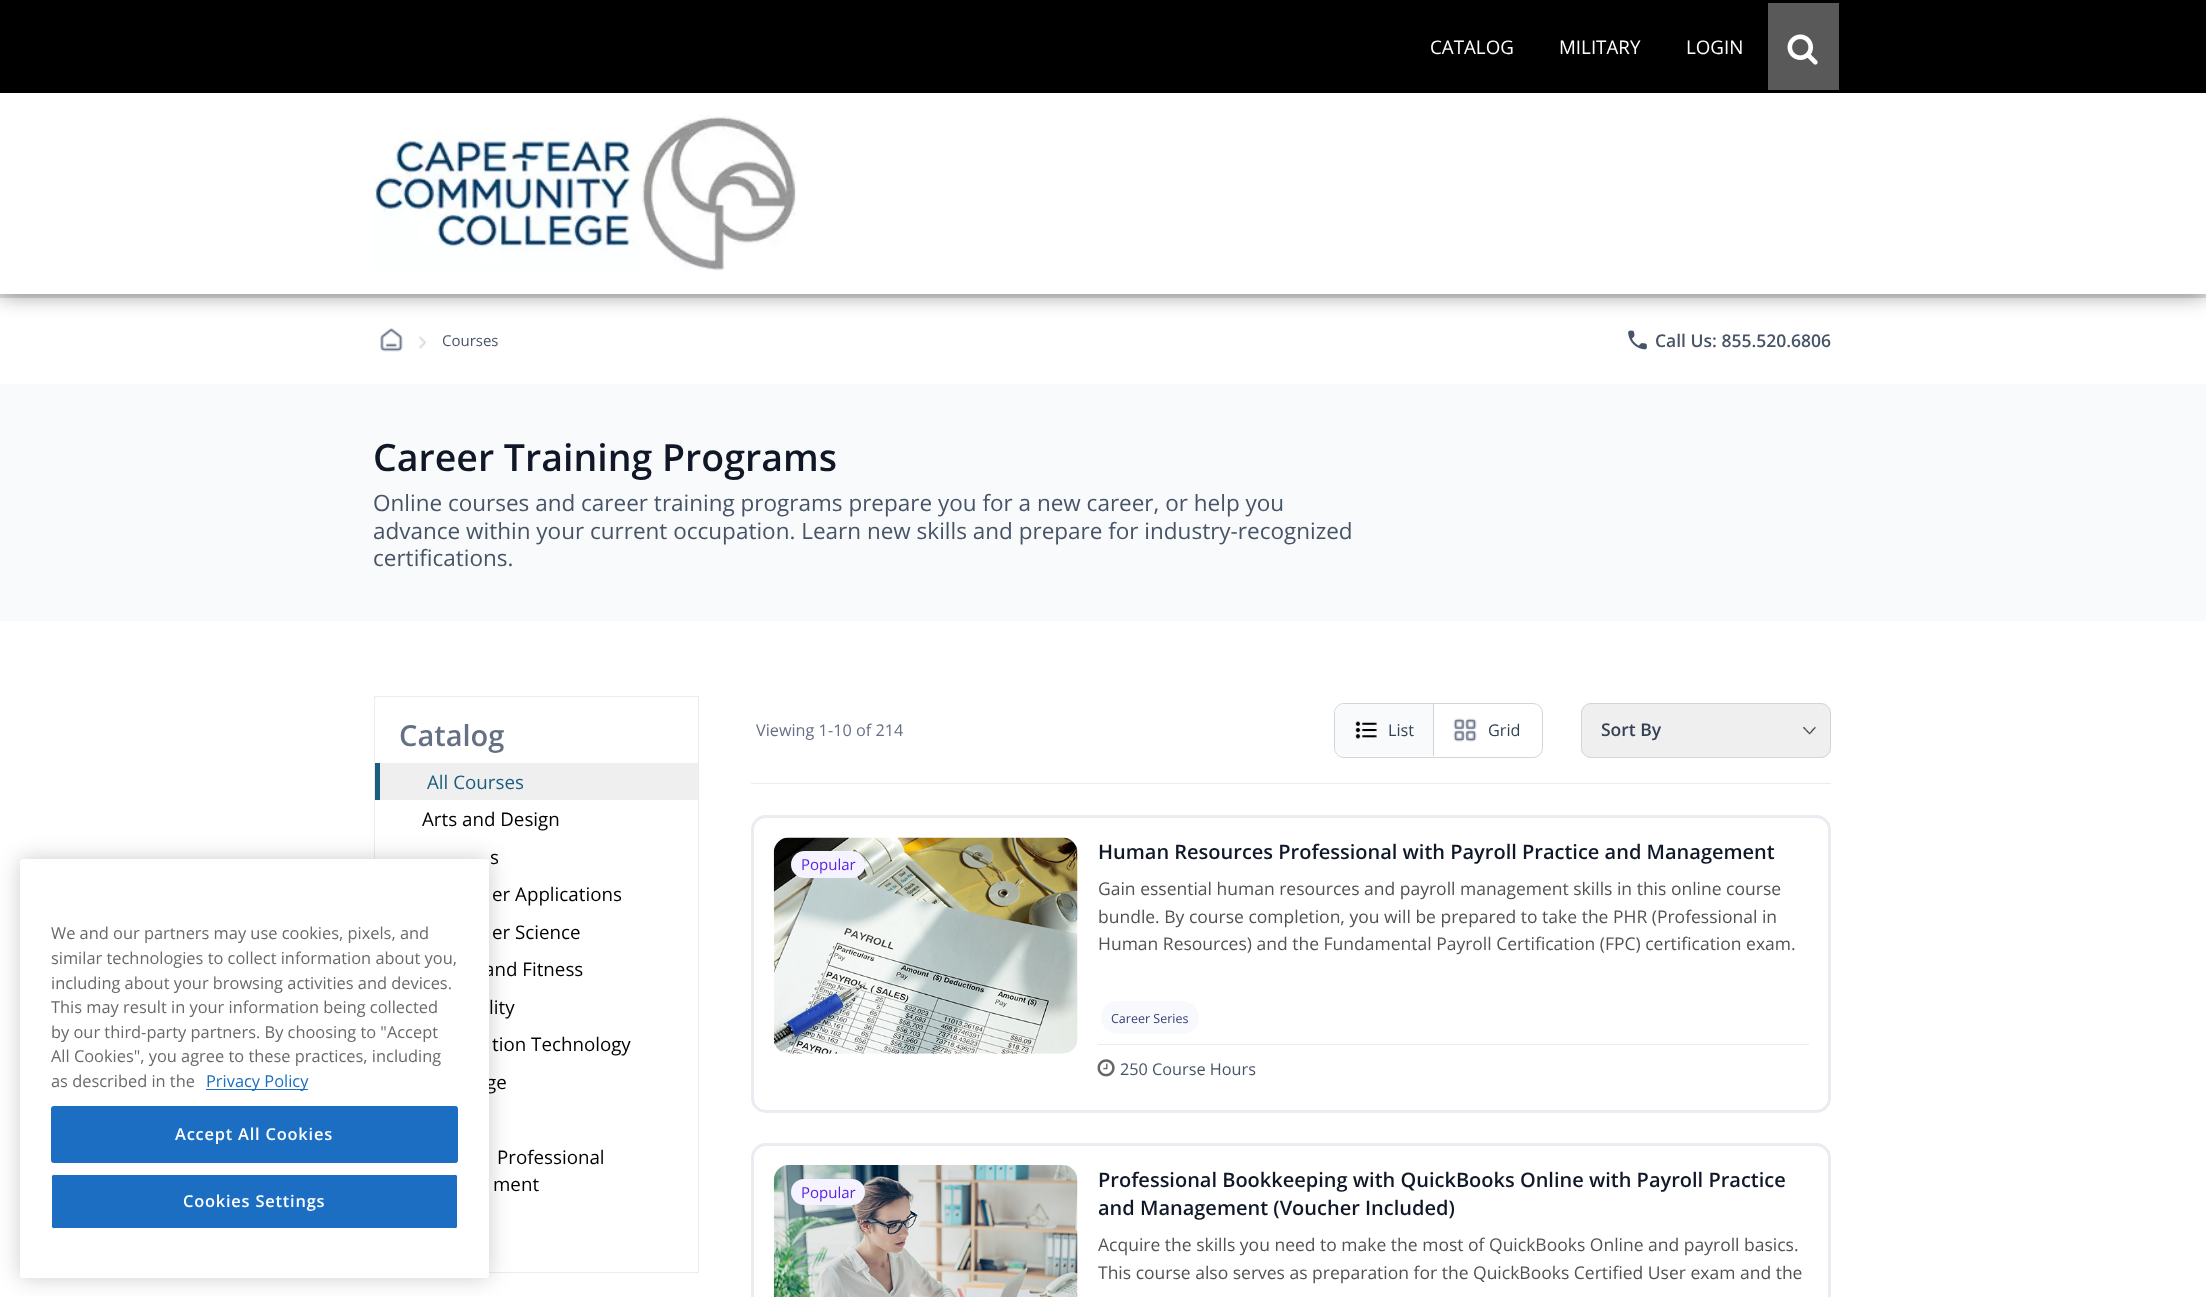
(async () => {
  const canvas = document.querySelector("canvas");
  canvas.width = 2206;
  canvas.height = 1297;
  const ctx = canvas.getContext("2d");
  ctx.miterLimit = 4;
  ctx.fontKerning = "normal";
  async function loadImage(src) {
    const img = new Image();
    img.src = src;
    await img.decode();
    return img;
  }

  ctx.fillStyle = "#ffffff";
  ctx.fillRect(0, 0, 2206, 1297);
  ctx.strokeStyle = "#eaecf0";
  ctx.strokeRect(374.5, 696.5, 324, 576);
  ctx.fillStyle = "rgba(0, 0, 0, 0.2)";
  ctx.filter = "blur(11px)";
  ctx.beginPath();
  ctx.roundRect(20, 859, 469, 419, 3);
  ctx.fill();
  ctx.filter = "none";
  ctx.fillStyle = "#000000";
  ctx.fillRect(0, 0, 2206, 93);
  ctx.fillStyle = "#e2e2e2";
  ctx.fillRect(0, 294, 2206, 4);
  ctx.fillStyle = "rgba(0, 0, 0, 0.42)";
  ctx.filter = "blur(10.5px)";
  ctx.beginPath();
  ctx.rect(0, 94, 2206, 201);
  ctx.fill();
  ctx.filter = "none";
  ctx.fillStyle = "#595959";
  ctx.fillRect(1768, 3, 71, 87);
  ctx.drawImage(await loadImage("img/1.png"), 1787, 34, 31, 31);
  ctx.fillStyle = "#ffffff";
  ctx.fillRect(0, 93, 2206, 201);
  ctx.drawImage(await loadImage("img/2.png"), 374, 115, 422, 156);
  ctx.drawImage(await loadImage("img/3.png"), 380, 328, 23, 24);
  ctx.drawImage(await loadImage("img/4.png"), 418, 336, 9, 13);
  ctx.drawImage(await loadImage("img/5.png"), 1628, 330, 19, 20);
  for (const [x, y, w, h, color] of [
    [0, 384, 2206, 237, "#f9fafb"],
    [380, 763, 318, 37, "#efefef"],
    [375, 763, 5, 37, "#1a5d7f"],
    [751, 783, 1080, 1, "#e9ecf0"],
  ]) {
    ctx.fillStyle = color;
    ctx.fillRect(x, y, w, h);
  }
  ctx.beginPath();
  ctx.roundRect(1334.5, 703.5, 208, 54, 9.5);
  ctx.strokeStyle = "#d0d5dc";
  ctx.stroke();
  ctx.fillStyle = "#f9fafb";
  ctx.beginPath();
  ctx.roundRect(1335, 704, 99, 52, [9, 0, 0, 9]);
  ctx.fill();
  ctx.fillStyle = "#d0d5dc";
  ctx.fillRect(1433, 704, 1, 52);
  ctx.drawImage(await loadImage("img/6.png"), 1355, 721, 22, 18);
  ctx.drawImage(await loadImage("img/7.png"), 1453, 718, 24, 24);
  ctx.fillStyle = "#efefef";
  ctx.beginPath();
  ctx.roundRect(1581, 703, 250, 55, 10);
  ctx.fill();
  ctx.drawImage(await loadImage("img/8.png"), 1802, 726, 14, 9);
  ctx.beginPath();
  ctx.roundRect(1581.5, 703.5, 249, 54, 9.5);
  ctx.stroke();
  ctx.beginPath();
  ctx.roundRect(752.5, 816.5, 1077, 295, 13.5);
  ctx.strokeStyle = "#e9ecf0";
  ctx.lineWidth = 3;
  ctx.stroke();
  ctx.drawImage(await loadImage("img/9.png"), 773, 837, 305, 217);
  ctx.fillStyle = "#f4f3ff";
  ctx.beginPath();
  ctx.roundRect(791, 851, 74, 27, 13.5);
  ctx.fill();
  ctx.fillStyle = "#f8f9fc";
  ctx.beginPath();
  ctx.roundRect(1101, 1001, 98, 33, 16.5);
  ctx.fill();
  ctx.fillStyle = "#e9ecf0";
  ctx.fillRect(1098, 1044, 711, 1);
  ctx.drawImage(await loadImage("img/10.png"), 1097, 1059, 18, 18);
  ctx.beginPath();
  ctx.roundRect(752.5, 1144.5, 1077, 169, 13.5);
  ctx.stroke();
  ctx.drawImage(await loadImage("img/11.png"), 773, 1165, 305, 132);
  ctx.fillStyle = "#f4f3ff";
  ctx.beginPath();
  ctx.roundRect(791, 1179, 74, 26, 13);
  ctx.fill();
  ctx.font = "18.75px Open Sans";
  ctx.fillStyle = "#ffffff";
  for (const [text, x, y] of [
    ["CATALOG", 1430, 54],
    ["MILITARY", 1559, 54],
    ["LOGIN", 1686, 54],
  ]) {
    ctx.fillText(text, x, y);
  }
  ctx.font = "15px Open Sans";
  ctx.fillStyle = "#475467";
  ctx.fillText("Courses", 442, 346);
  ctx.font = "600 17.5px Open Sans";
  ctx.fillText("Call Us: 855.520.6806", 1655, 347);
  ctx.font = "600 37.5px Open Sans";
  ctx.fillStyle = "#101828";
  ctx.fillText("Career Training Programs", 373, 471);
  ctx.font = "22.5px Open Sans";
  ctx.fillStyle = "#475467";
  for (const [text, x, y] of [
    ["Online courses and career training programs prepare you for a new career, or help you", 373, 511],
    ["advance within your current occupation. Learn new skills and prepare for industry-recognized", 373, 539],
    ["certifications.", 373, 566],
  ]) {
    ctx.fillText(text, x, y);
  }
  ctx.font = "600 29px Open Sans";
  ctx.fillStyle = "#667085";
  ctx.fillText("Catalog", 399, 746);
  ctx.font = "18.75px Open Sans";
  ctx.fillStyle = "#1a5d7f";
  ctx.fillText("All Courses", 427, 789);
  ctx.fillStyle = "#000000";
  for (const [text, x, y] of [
    ["Arts and Design", 422, 826],
    ["s", 490, 864],
    ["er Applications", 492, 901],
    ["er Science", 492, 939],
    ["and Fitness", 484, 976],
    ["lity", 489, 1014],
    ["tion Technology", 492, 1051],
    ["ge", 486, 1089],
  ]) {
    ctx.fillText(text, x, y);
  }
  ctx.fillStyle = "#ffffff";
  ctx.beginPath();
  ctx.roundRect(20, 859, 469, 419, 3);
  ctx.fill();
  ctx.fillStyle = "#1b6ec2";
  ctx.beginPath();
  ctx.roundRect(51.5, 1174.5, 406, 54, 2);
  ctx.fill();
  ctx.strokeStyle = "#ffffff";
  ctx.lineWidth = 1;
  ctx.stroke();
  ctx.letterSpacing = "0.8px";
  ctx.font = "600 16.4px Open Sans";
  ctx.fillStyle = "#ffffff";
  ctx.fillText("Cookies Settings", 183, 1207);
  ctx.fillStyle = "#1b6ec2";
  ctx.beginPath();
  ctx.roundRect(51.5, 1106.5, 406, 56, 2);
  ctx.fill();
  ctx.strokeStyle = "#1b6ec2";
  ctx.stroke();
  ctx.fillStyle = "#ffffff";
  ctx.fillText("Accept All Cookies", 175, 1140);
  ctx.fillStyle = "#1b6ec2";
  ctx.fillRect(206, 1089, 102, 1);
  ctx.letterSpacing = "0px";
  ctx.font = "16.4px Open Sans";
  ctx.fillText("Privacy Policy", 206, 1087);
  ctx.fillStyle = "#696969";
  for (const [text, x, y] of [
    ["as described in the", 51, 1087],
    ["All Cookies\", you agree to these practices, including", 51, 1062],
    ["by our third-party partners. By choosing to \"Accept", 51, 1038],
    ["This may result in your information being collected", 51, 1013],
    ["including about your browsing activities and devices.", 51, 989],
    ["similar technologies to collect information about you,", 51, 964],
    ["We and our partners may use cookies, pixels, and", 51, 939],
  ]) {
    ctx.fillText(text, x, y);
  }
  ctx.font = "18.75px Open Sans";
  ctx.fillStyle = "#000000";
  ctx.fillText("Professional", 497, 1164);
  ctx.fillText("ment", 493, 1191);
  ctx.font = "16.25px Open Sans";
  ctx.fillStyle = "#667085";
  ctx.fillText("Viewing 1-10 of 214", 756, 736);
  ctx.fillStyle = "#344053";
  ctx.fillText("List", 1388, 736);
  ctx.fillText("Grid", 1488, 736);
  ctx.font = "600 17.5px Open Sans";
  ctx.fillText("Sort By", 1601, 736);
  ctx.font = "15px Open Sans";
  ctx.fillStyle = "#5925dc";
  ctx.fillText("Popular", 801, 870);
  ctx.font = "600 20px Open Sans";
  ctx.fillStyle = "#101828";
  ctx.fillText("Human Resources Professional with Payroll Practice and Management", 1098, 859);
  ctx.font = "17.5px Open Sans";
  ctx.fillStyle = "#525252";
  for (const [text, x, y] of [
    ["Gain essential human resources and payroll management skills in this online course", 1098, 895],
    ["bundle. By course completion, you will be prepared to take the PHR (Professional in", 1098, 923],
    ["Human Resources) and the Fundamental Payroll Certification (FPC) certification exam.", 1098, 950],
  ]) {
    ctx.fillText(text, x, y);
  }
  ctx.font = "12.5px Open Sans";
  ctx.fillStyle = "#363f72";
  ctx.fillText("Career Series", 1111, 1023);
  ctx.font = "16.25px Open Sans";
  ctx.fillStyle = "#475467";
  ctx.fillText("250 Course Hours", 1120, 1075);
  ctx.font = "15px Open Sans";
  ctx.fillStyle = "#5925dc";
  ctx.fillText("Popular", 801, 1198);
  ctx.font = "600 20px Open Sans";
  ctx.fillStyle = "#101828";
  ctx.fillText("Professional Bookkeeping with QuickBooks Online with Payroll Practice", 1098, 1187);
  ctx.fillText("and Management (Voucher Included)", 1098, 1215);
  ctx.font = "17.5px Open Sans";
  ctx.fillStyle = "#525252";
  ctx.fillText("Acquire the skills you need to make the most of QuickBooks Online and payroll basics.", 1098, 1251);
  ctx.fillText("This course also serves as preparation for the QuickBooks Certified User exam and the", 1098, 1279);
})();
